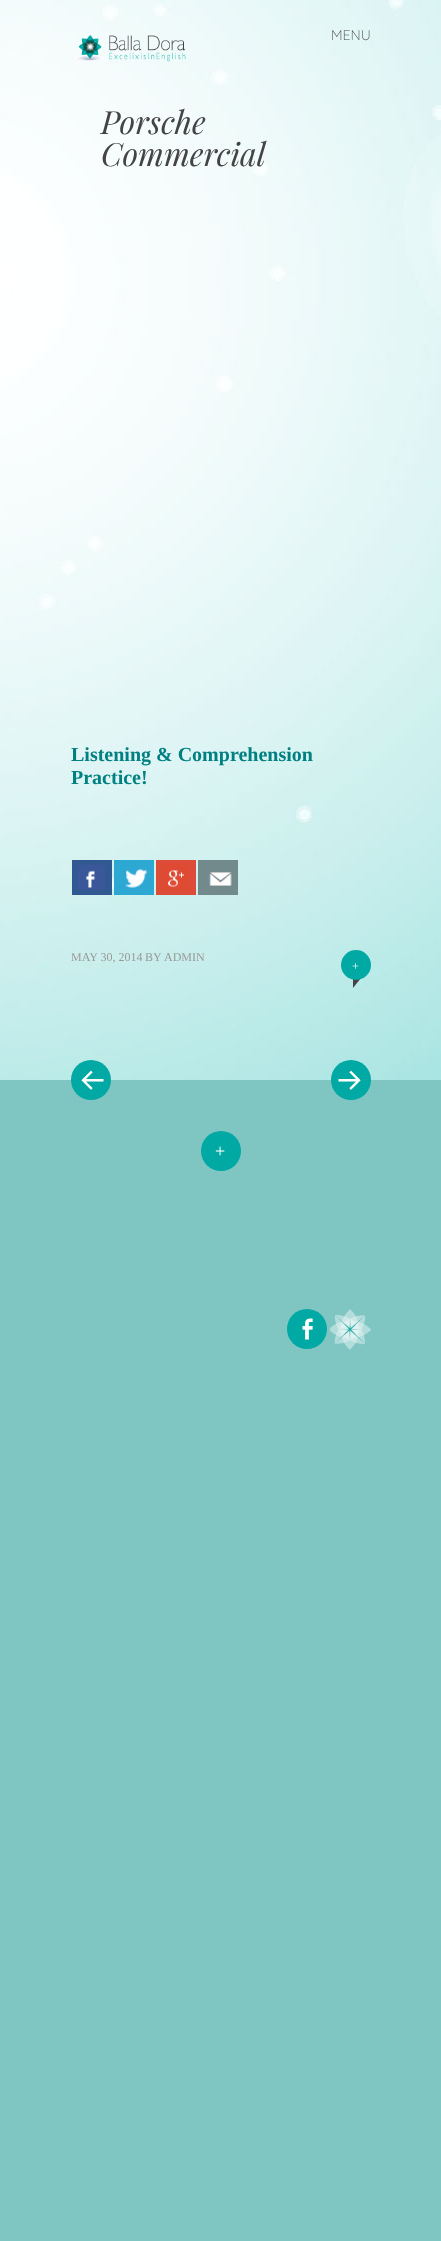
(async () => {
  const canvas = document.querySelector("canvas");
  canvas.width = 441;
  canvas.height = 2241;
  const ctx = canvas.getContext("2d");
  ctx.miterLimit = 4;
  ctx.fontKerning = "normal";
  async function loadImage(src) {
    const img = new Image();
    img.src = src;
    await img.decode();
    return img;
  }
  let path;

  ctx.fillStyle = "#7fc6c3";
  ctx.fillRect(0, 0, 441, 2241);
  ctx.drawImage(await loadImage("img/1.png"), 0, 0, 441, 1080);
  ctx.drawImage(await loadImage("img/2.png"), 75, 35, 111, 27);
  ctx.fillStyle = "#305891";
  ctx.fillRect(72, 860, 40, 35);
  ctx.drawImage(await loadImage("img/3.png"), 77, 864, 28, 26);
  ctx.fillStyle = "#2ca8d2";
  ctx.fillRect(114, 860, 40, 35);
  ctx.drawImage(await loadImage("img/4.png"), 125, 869, 23, 19);
  ctx.fillStyle = "#dd4c39";
  ctx.fillRect(156, 860, 40, 35);
  ctx.drawImage(await loadImage("img/5.png"), 161, 864, 29, 26);
  ctx.fillStyle = "#738a8d";
  ctx.fillRect(198, 860, 40, 35);
  ctx.drawImage(await loadImage("img/6.png"), 209, 872, 23, 14);
  ctx.fillStyle = "#444444";
  path = new Path2D("M353 978H361L353 988Z");
  ctx.fill(path);
  ctx.fillStyle = "#00a9a3";
  ctx.beginPath();
  ctx.arc(356, 965, 15, 0, Math.PI * 2);
  ctx.fill();
  ctx.beginPath();
  ctx.arc(91, 1080, 20, 0, Math.PI * 2);
  ctx.fill();
  ctx.drawImage(await loadImage("img/7.png"), 81, 1070, 23, 20);
  ctx.beginPath();
  ctx.arc(351, 1080, 20, 0, Math.PI * 2);
  ctx.fill();
  ctx.drawImage(await loadImage("img/8.png"), 338, 1070, 23, 20);
  ctx.beginPath();
  ctx.arc(221, 1151, 20, 0, Math.PI * 2);
  ctx.fill();
  ctx.beginPath();
  ctx.arc(307, 1329, 20, 0, Math.PI * 2);
  ctx.fill();
  ctx.drawImage(await loadImage("img/9.png"), 302, 1318, 11, 22);
  ctx.drawImage(await loadImage("img/10.png"), 330, 1309, 41, 41);
  ctx.font = "300 14px Quicksand";
  ctx.fillStyle = "#444444";
  ctx.fillText("MENU", 331, 40);
  ctx.font = "italic 32px Playfair Display";
  ctx.fillText("Porsche", 101, 134);
  ctx.fillText("Commercial", 101, 166);
  ctx.font = "bold 20px Liberation Serif";
  ctx.fillStyle = "#008080";
  ctx.fillText("Listening & Comprehension", 71, 761);
  ctx.fillText("Practice!", 71, 784);
  ctx.font = "12px Liberation Serif";
  ctx.fillStyle = "#999999";
  for (const [text, x, y] of [
    ["MAY 30, 2014", 71, 961],
    ["BY", 145, 961],
    ["ADMIN", 164, 961],
  ]) {
    ctx.fillText(text, x, y);
  }
  ctx.fillStyle = "#ffffff";
  ctx.fillText("+", 352, 970);
  ctx.font = "18px Liberation Serif";
  ctx.fillText("+", 215, 1157);
})();
